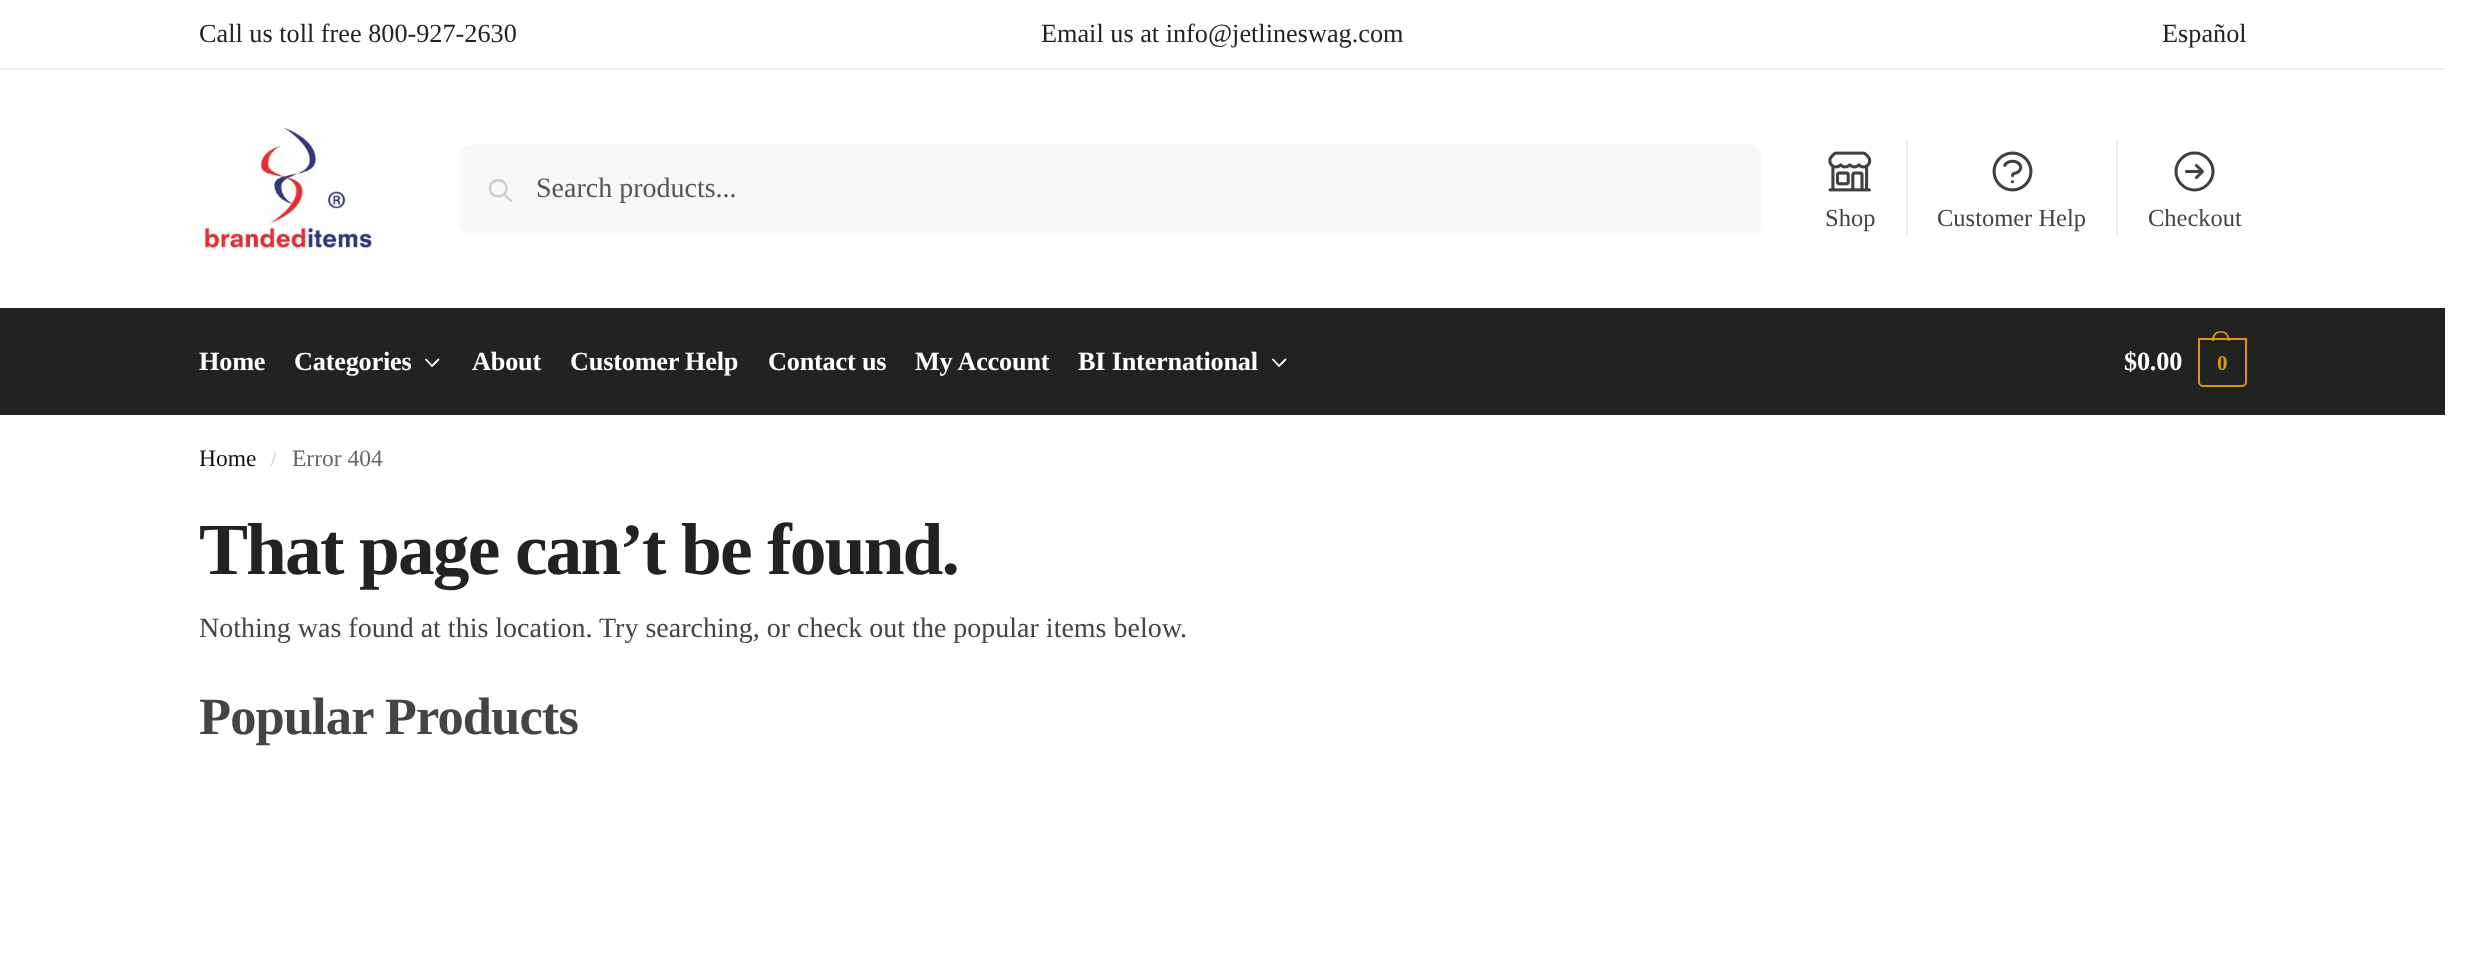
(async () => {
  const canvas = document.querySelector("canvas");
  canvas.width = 2471;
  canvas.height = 961;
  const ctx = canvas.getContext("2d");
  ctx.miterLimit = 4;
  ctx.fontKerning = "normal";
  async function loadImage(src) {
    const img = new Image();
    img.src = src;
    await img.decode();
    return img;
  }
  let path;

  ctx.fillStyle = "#ffffff";
  ctx.fillRect(0, 0, 2471, 961);
  ctx.fillStyle = "#eeeeee";
  ctx.fillRect(0, 68, 2445, 2);
  ctx.drawImage(await loadImage("img/1.png"), 203, 127, 169, 123);
  ctx.fillStyle = "rgba(0, 0, 0, 0.05)";
  ctx.filter = "blur(2px)";
  ctx.beginPath();
  ctx.roundRect(460, 147, 1301, 86, 9);
  ctx.fill();
  ctx.filter = "none";
  ctx.fillStyle = "#f8f8f8";
  ctx.beginPath();
  ctx.roundRect(460, 145, 1301, 86, 9);
  ctx.fill();
  path = new Path2D("M511 201L504 194M506.5 188.5C506.5 199 490 199 490 188.5C490 177.5 506.5 177.5 506.5 188.5Z");
  ctx.strokeStyle = "#cccccc";
  ctx.lineWidth = 2.3;
  ctx.lineCap = "round";
  ctx.lineJoin = "round";
  ctx.stroke(path);
  ctx.drawImage(await loadImage("img/2.png"), 1828, 151, 44, 41);
  ctx.fillStyle = "#eeeeee";
  ctx.fillRect(1906, 138, 2, 98);
  ctx.drawImage(await loadImage("img/3.png"), 1992, 151, 41, 41);
  ctx.fillRect(2116, 138, 2, 98);
  path = new Path2D("M2196.5 165.5L2202.5 171.5M2202.5 171.5L2196.5 177.5M2202.5 171.5H2186.5M2213 171.5C2213 181.5 2204.5 190 2194.5 190C2184.5 190 2176 181.5 2176 171.5C2176 161.5 2184.5 153 2194.5 153C2204.5 153 2213 161.5 2213 171.5Z");
  ctx.strokeStyle = "#404040";
  ctx.lineWidth = 3.1;
  ctx.stroke(path);
  ctx.fillStyle = "#222222";
  ctx.fillRect(0, 308, 2445, 107);
  path = new Path2D("M438.5 359.5L432 366L426 359.5");
  ctx.strokeStyle = "#ffffff";
  ctx.lineWidth = 1.8;
  ctx.stroke(path);
  path = new Path2D("M1285.5 359.5L1279 366L1273 359.5");
  ctx.stroke(path);
  ctx.beginPath();
  ctx.roundRect(2199, 339, 47, 47, [0, 0, 4, 4]);
  ctx.strokeStyle = "#dc9814";
  ctx.lineWidth = 2;
  ctx.lineJoin = "miter";
  ctx.stroke();
  ctx.fillStyle = "#dc9814";
  path = new Path2D("M2221 331C2227 331 2229.5 335.5 2229.5 341H2212C2212 335.5 2214.5 331 2221 331ZM2221 332.5C2226 332.5 2228 337 2228 341H2214C2214 337 2215.5 332.5 2221 332.5Z");
  ctx.fill(path, "evenodd");
  ctx.font = "26.25px Liberation Serif";
  ctx.fillStyle = "#222222";
  for (const [text, x, y] of [
    ["Call us toll free 800-927-2630", 199, 42],
    ["Email us at info@jetlineswag.com", 1041, 42],
    ["Español", 2162, 42],
  ]) {
    ctx.fillText(text, x, y);
  }
  ctx.font = "28px Liberation Serif";
  ctx.fillStyle = "#555555";
  ctx.fillText("Search products...", 536, 197);
  ctx.font = "24.5px Liberation Serif";
  ctx.fillStyle = "#444444";
  for (const [text, x, y] of [
    ["Shop", 1825, 226],
    ["Customer Help", 1937, 226],
    ["Checkout", 2148, 226],
  ]) {
    ctx.fillText(text, x, y);
  }
  ctx.letterSpacing = "-0.2px";
  ctx.font = "bold 26.25px Liberation Serif";
  ctx.fillStyle = "#ffffff";
  for (const [text, x, y] of [
    ["Home", 199, 370],
    ["Categories", 294, 370],
    ["About", 472, 370],
    ["Customer Help", 570, 370],
    ["Contact us", 768, 370],
    ["My Account", 915, 370],
    ["BI International", 1078, 370],
    ["$0.00", 2124, 370],
  ]) {
    ctx.fillText(text, x, y);
  }
  ctx.letterSpacing = "-1px";
  ctx.font = "bold 21px Liberation Serif";
  ctx.fillStyle = "#dc9814";
  ctx.fillText("0", 2217, 370);
  ctx.save();
  ctx.beginPath();
  ctx.rect(200, 415, 2047, 91);
  ctx.clip();
  ctx.letterSpacing = "0px";
  ctx.font = "23.5px Liberation Serif";
  ctx.fillStyle = "#111111";
  ctx.fillText("Home", 199, 466);
  ctx.restore();
  ctx.letterSpacing = "0px";
  ctx.font = "19px Liberation Serif";
  ctx.fillStyle = "#c2c2c2";
  ctx.fillText("/", 271, 465);
  ctx.font = "23.5px Liberation Serif";
  ctx.fillStyle = "#666666";
  ctx.fillText("Error 404", 292, 466);
  ctx.letterSpacing = "-1.9px";
  ctx.font = "bold 73.5px Liberation Serif";
  ctx.fillStyle = "#222222";
  ctx.fillText("That page can’t be found.", 199, 574);
  ctx.letterSpacing = "0px";
  ctx.font = "28px Liberation Serif";
  ctx.fillStyle = "#444444";
  ctx.fillText("Nothing was found at this location. Try searching, or check out the popular items below.", 199, 637);
  ctx.letterSpacing = "-0.9px";
  ctx.font = "bold 52.5px Liberation Serif";
  ctx.fillText("Popular Products", 199, 734);
})();
